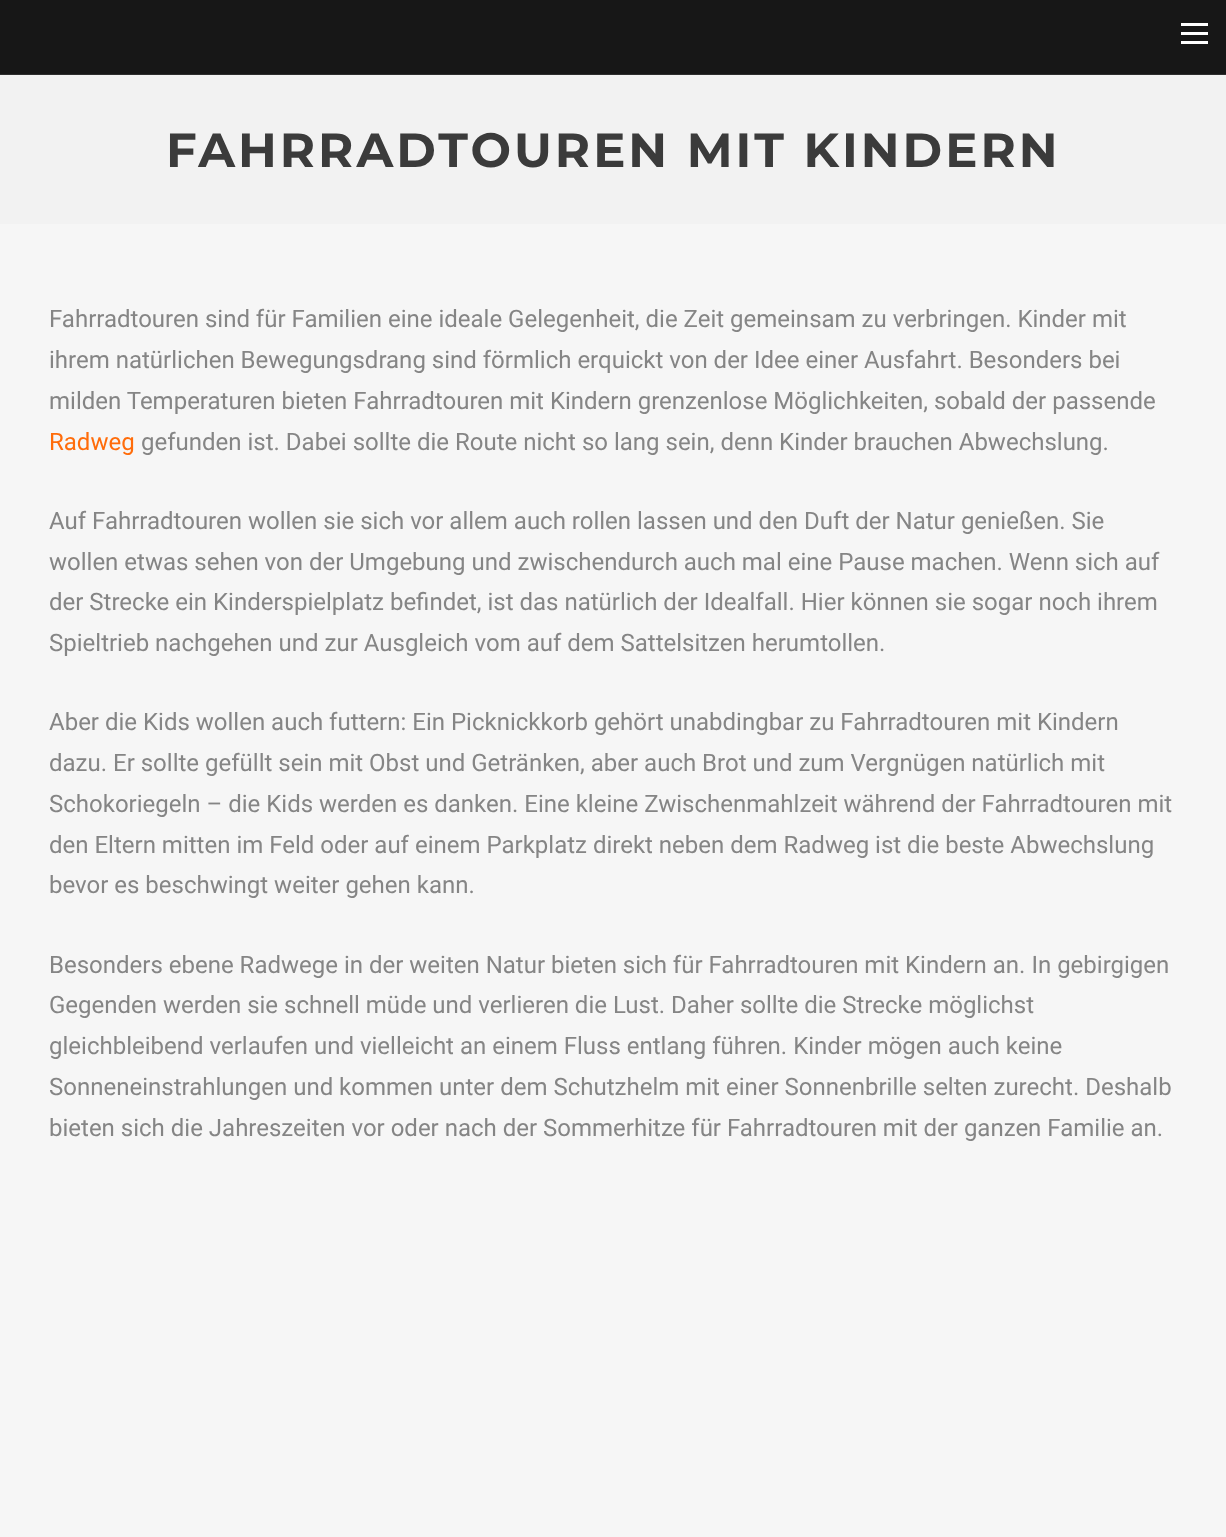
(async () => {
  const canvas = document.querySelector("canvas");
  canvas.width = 1226;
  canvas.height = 1537;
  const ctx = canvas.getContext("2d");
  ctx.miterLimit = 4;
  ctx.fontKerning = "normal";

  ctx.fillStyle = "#f6f6f6";
  ctx.fillRect(0, 0, 1226, 1537);
  for (const [x, y, w, h, color] of [
    [0, 0, 1226, 74, "#171717"],
    [0, 74, 1226, 1, "#2e2e2e"],
    [1181, 23, 27, 3, "#ffffff"],
    [1181, 32, 27, 3, "#ffffff"],
    [1181, 41, 27, 3, "#ffffff"],
    [0, 76, 1226, 148, "#f2f2f2"],
    [0, 75, 1226, 1, "#f3f3f3"],
  ]) {
    ctx.fillStyle = color;
    ctx.fillRect(x, y, w, h);
  }
  ctx.letterSpacing = "3px";
  ctx.font = "bold 48px Montserrat";
  ctx.fillStyle = "#3b3b3b";
  ctx.fillText("FAHRRADTOUREN MIT KINDERN", 166, 167);
  ctx.letterSpacing = "0px";
  ctx.font = "24px Roboto";
  ctx.fillStyle = "#858585";
  for (const [text, x, y] of [
    ["Fahrradtouren sind für Familien eine ideale Gelegenheit, die Zeit gemeinsam zu verbringen. Kinder mit", 49, 327],
    ["ihrem natürlichen Bewegungsdrang sind förmlich erquickt von der Idee einer Ausfahrt. Besonders bei", 49, 368],
    ["milden Temperaturen bieten Fahrradtouren mit Kindern grenzenlose Möglichkeiten, sobald der passende", 49, 409],
  ]) {
    ctx.fillText(text, x, y);
  }
  ctx.fillStyle = "#ff6c0a";
  ctx.fillText("Radweg", 49, 450);
  ctx.fillStyle = "#858585";
  for (const [text, x, y] of [
    ["gefunden ist. Dabei sollte die Route nicht so lang sein, denn Kinder brauchen Abwechslung.", 141, 450],
    ["Auf Fahrradtouren wollen sie sich vor allem auch rollen lassen und den Duft der Natur genießen. Sie", 49, 529],
    ["wollen etwas sehen von der Umgebung und zwischendurch auch mal eine Pause machen. Wenn sich auf", 49, 570],
    ["der Strecke ein Kinderspielplatz befindet, ist das natürlich der Idealfall. Hier können sie sogar noch ihrem", 49, 610],
    ["Spieltrieb nachgehen und zur Ausgleich vom auf dem Sattelsitzen herumtollen.", 49, 651],
    ["Aber die Kids wollen auch futtern: Ein Picknickkorb gehört unabdingbar zu Fahrradtouren mit Kindern", 49, 730],
    ["dazu. Er sollte gefüllt sein mit Obst und Getränken, aber auch Brot und zum Vergnügen natürlich mit", 49, 771],
    ["Schokoriegeln – die Kids werden es danken. Eine kleine Zwischenmahlzeit während der Fahrradtouren mit", 49, 812],
    ["den Eltern mitten im Feld oder auf einem Parkplatz direkt neben dem Radweg ist die beste Abwechslung", 49, 853],
    ["bevor es beschwingt weiter gehen kann.", 49, 893],
    ["Besonders ebene Radwege in der weiten Natur bieten sich für Fahrradtouren mit Kindern an. In gebirgigen", 49, 973],
    ["Gegenden werden sie schnell müde und verlieren die Lust. Daher sollte die Strecke möglichst", 49, 1013],
    ["gleichbleibend verlaufen und vielleicht an einem Fluss entlang führen. Kinder mögen auch keine", 49, 1054],
    ["Sonneneinstrahlungen und kommen unter dem Schutzhelm mit einer Sonnenbrille selten zurecht. Deshalb", 49, 1095],
    ["bieten sich die Jahreszeiten vor oder nach der Sommerhitze für Fahrradtouren mit der ganzen Familie an.", 49, 1136],
  ]) {
    ctx.fillText(text, x, y);
  }
})();
